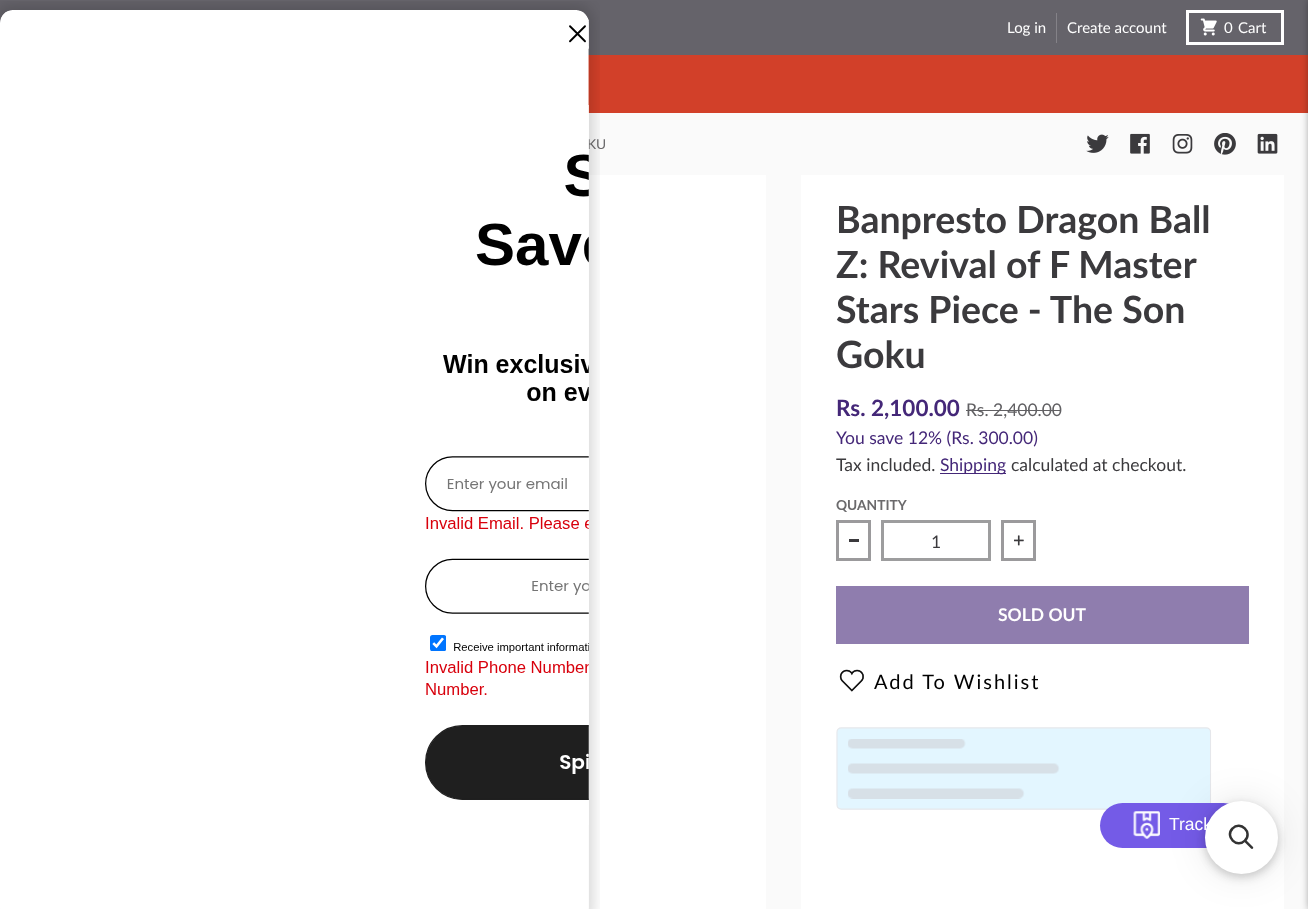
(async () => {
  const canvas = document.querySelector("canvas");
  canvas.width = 1308;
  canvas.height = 909;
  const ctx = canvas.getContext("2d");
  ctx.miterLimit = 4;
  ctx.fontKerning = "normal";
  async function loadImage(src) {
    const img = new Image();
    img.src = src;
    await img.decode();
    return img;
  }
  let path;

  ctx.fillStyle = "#fafafa";
  ctx.fillRect(0, 0, 1308, 909);
  ctx.fillStyle = "#65636a";
  ctx.fillRect(0, 0, 1308, 55);
  ctx.fillStyle = "#848288";
  ctx.fillRect(1056, 13, 1, 30);
  ctx.strokeStyle = "#ffffff";
  ctx.lineWidth = 3;
  ctx.strokeRect(1187.5, 11.5, 95, 32);
  ctx.drawImage(await loadImage("img/2.png"), 1200, 18, 17, 18);
  ctx.fillStyle = "#d24029";
  ctx.fillRect(588, 55, 720, 58);
  ctx.fillStyle = "rgba(0, 0, 0, 0.5)";
  ctx.filter = "blur(4.5px)";
  ctx.beginPath();
  ctx.rect(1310, 0, 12, 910);
  ctx.fill();
  ctx.filter = "none";
  ctx.drawImage(await loadImage("img/3.png"), 1086, 134, 23, 19);
  ctx.drawImage(await loadImage("img/4.png"), 1130, 133, 20, 21);
  ctx.drawImage(await loadImage("img/5.png"), 1172, 134, 21, 20);
  ctx.drawImage(await loadImage("img/6.png"), 1214, 133, 22, 22);
  ctx.drawImage(await loadImage("img/7.png"), 1257, 133, 21, 21);
  ctx.drawImage(await loadImage("img/8.png"), 588, 175, 178, 734);
  for (const [x, y, w, h, color] of [
    [801, 175, 483, 734, "#ffffff"],
    [966, 410, 95, 1, "#616063"],
    [940, 473, 66, 1, "#442778"],
  ]) {
    ctx.fillStyle = color;
    ctx.fillRect(x, y, w, h);
  }
  ctx.strokeStyle = "#9b9a9c";
  ctx.strokeRect(837.5, 521.5, 32, 38);
  ctx.fillStyle = "#3b3a3d";
  ctx.fillRect(849, 539, 10, 3);
  ctx.strokeStyle = "#9d9d9e";
  ctx.strokeRect(882.5, 521.5, 107, 38);
  ctx.strokeStyle = "#9b9a9c";
  ctx.strokeRect(1002.5, 521.5, 32, 38);
  ctx.drawImage(await loadImage("img/9.png"), 1014, 535, 10, 11);
  ctx.fillStyle = "#8f7dae";
  ctx.fillRect(836, 586, 413, 58);
  ctx.drawImage(await loadImage("img/10.png"), 839, 669, 25, 23);
  ctx.drawImage(await loadImage("img/11.png"), 836, 727, 376, 83);
  ctx.fillStyle = "#745be7";
  ctx.beginPath();
  ctx.roundRect(1100, 803, 146, 45, 22.5);
  ctx.fill();
  ctx.fillStyle = "rgba(0, 0, 0, 0.05)";
  ctx.filter = "blur(5px)";
  ctx.beginPath();
  ctx.roundRect(1205, 806, 73, 73, 36.5);
  ctx.fill();
  ctx.filter = "none";
  ctx.fillStyle = "rgba(0, 0, 0, 0.15)";
  ctx.filter = "blur(5px)";
  ctx.beginPath();
  ctx.roundRect(1205, 804, 73, 72, 36);
  ctx.fill();
  ctx.filter = "none";
  ctx.drawImage(await loadImage("img/12.png"), 1133, 811, 27, 28);
  ctx.fillStyle = "rgba(0, 0, 0, 0.1)";
  ctx.filter = "blur(19px)";
  ctx.beginPath();
  ctx.roundRect(1205, 801, 73, 73, 36.5);
  ctx.fill();
  ctx.filter = "none";
  ctx.fillStyle = "#ffffff";
  ctx.beginPath();
  ctx.arc(1241.5, 837.5, 36.5, 0, Math.PI * 2);
  ctx.fill();
  path = new Path2D("M1232.5 828.5C1240.5 820 1253 832.5 1245 840.5C1237 849 1224.5 836.5 1232.5 828.5Z");
  ctx.strokeStyle = "#333333";
  ctx.lineWidth = 2.5;
  ctx.stroke(path);
  ctx.fillStyle = "#333333";
  path = new Path2D("M1244 841.5L1246 840L1253 847C1254 848.5 1252 849.5 1251 848.5Z");
  ctx.fill(path);
  ctx.font = "15px Lato";
  ctx.fillStyle = "#ffffff";
  for (const [text, x, y] of [
    ["Log in", 1007, 33],
    ["Create account", 1067, 33],
    ["0", 1224, 33],
    ["Cart", 1238, 33],
  ]) {
    ctx.fillText(text, x, y);
  }
  ctx.font = "13.75px Lato";
  ctx.fillStyle = "#6b6a6c";
  ctx.fillText("KU", 587, 149);
  ctx.drawImage(await loadImage("img/1.png"), 0, 1, 600, 908);
  ctx.font = "bold 37.5px Lato";
  ctx.fillStyle = "#3b3a3d";
  for (const [text, x, y] of [
    ["Banpresto Dragon Ball", 836, 233],
    ["Z: Revival of F Master", 836, 278],
    ["Stars Piece - The Son", 836, 323],
    ["Goku", 836, 368],
  ]) {
    ctx.fillText(text, x, y);
  }
  ctx.font = "bold 22.5px Lato";
  ctx.fillStyle = "#442778";
  ctx.fillText("Rs. 2,100.00", 836, 416);
  ctx.font = "17.5px Lato";
  ctx.fillStyle = "#616063";
  ctx.fillText("Rs. 2,400.00", 966, 416);
  ctx.fillStyle = "#442778";
  ctx.fillText("You save 12% (Rs. 300.00)", 836, 444);
  ctx.fillStyle = "#3b3a3d";
  ctx.fillText("Tax included.", 836, 471);
  ctx.fillStyle = "#442778";
  ctx.fillText("Shipping", 940, 471);
  ctx.fillStyle = "#3b3a3d";
  ctx.fillText("calculated at checkout.", 1011, 471);
  ctx.font = "bold 13.75px Lato";
  ctx.fillStyle = "#6b6a6c";
  ctx.fillText("QUANTITY", 836, 510);
  ctx.font = "17.5px Lato";
  ctx.fillStyle = "#3b3a3d";
  ctx.fillText("1", 931, 548);
  ctx.font = "bold 17.5px Lato";
  ctx.fillStyle = "#ffffff";
  ctx.fillText("SOLD OUT", 998, 621);
  ctx.letterSpacing = "2px";
  ctx.font = "20px Lato";
  ctx.fillStyle = "#000000";
  ctx.fillText("Add To Wishlist", 874, 689);
  ctx.letterSpacing = "0px";
  ctx.font = "17.5px Liberation Sans";
  ctx.fillStyle = "#ffffff";
  ctx.fillText("Track", 1169, 830);
})();
